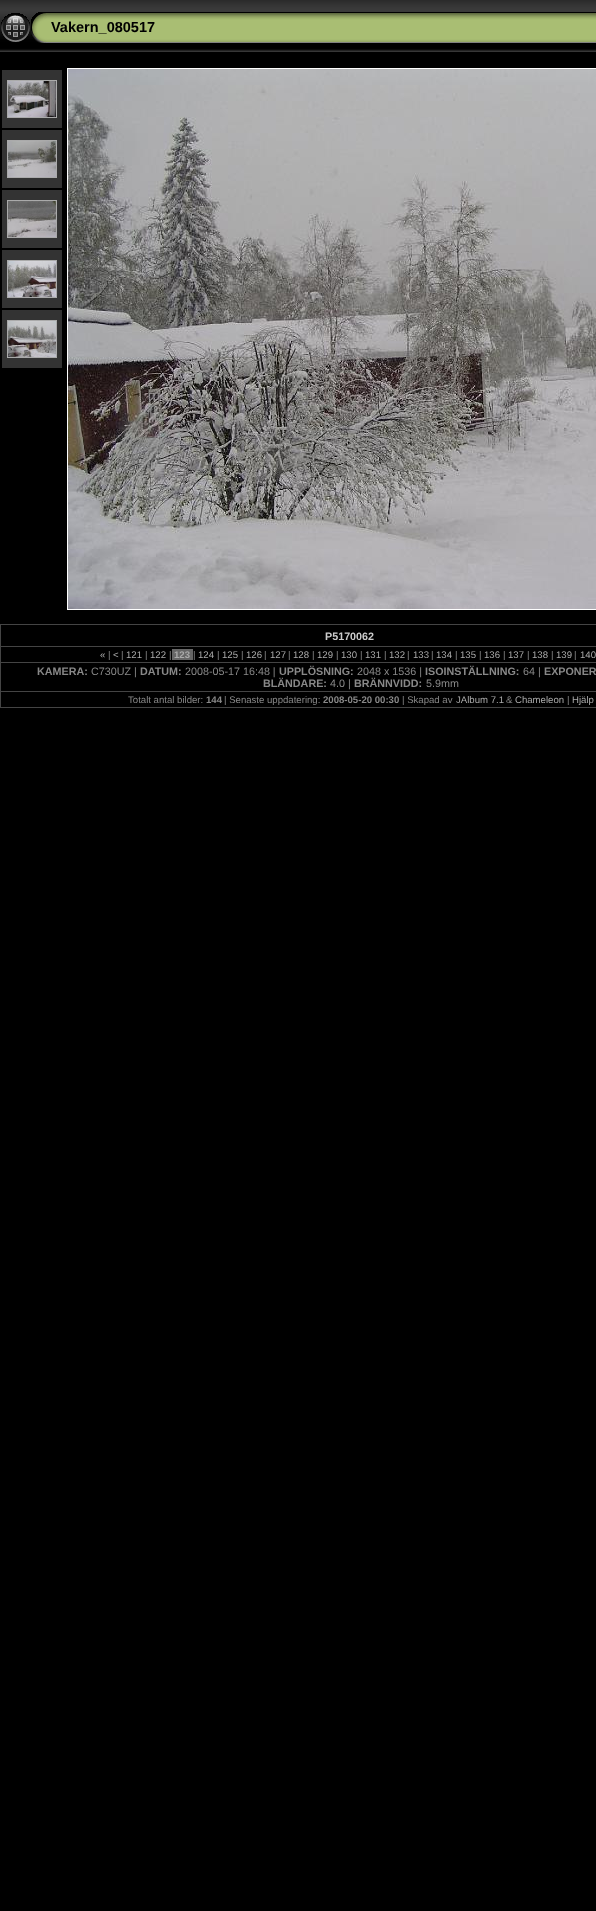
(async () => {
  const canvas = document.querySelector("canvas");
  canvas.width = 596;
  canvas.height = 1911;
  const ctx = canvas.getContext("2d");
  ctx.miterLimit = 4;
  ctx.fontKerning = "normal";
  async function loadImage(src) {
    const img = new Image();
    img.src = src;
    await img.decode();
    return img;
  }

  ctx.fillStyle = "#000000";
  ctx.fillRect(0, 0, 596, 1911);
  ctx.drawImage(await loadImage("img/1.png"), 0, 0, 596, 52);
  ctx.drawImage(await loadImage("img/2.png"), 1, 13, 29, 29);
  ctx.drawImage(await loadImage("img/3.png"), 31, 12, 20, 31);
  ctx.drawImage(await loadImage("img/4.png"), 51, 12, 545, 31);
  ctx.fillStyle = "#333333";
  ctx.fillRect(2, 70, 60, 58);
  ctx.strokeStyle = "#aaaaaa";
  ctx.strokeRect(7.5, 80.5, 49, 37);
  ctx.drawImage(await loadImage("img/5.png"), 8, 81, 48, 36);
  ctx.fillRect(2, 130, 60, 58);
  ctx.strokeRect(7.5, 140.5, 49, 37);
  ctx.drawImage(await loadImage("img/6.png"), 8, 141, 48, 36);
  ctx.fillRect(2, 190, 60, 58);
  ctx.strokeRect(7.5, 200.5, 49, 37);
  ctx.drawImage(await loadImage("img/7.png"), 8, 201, 48, 36);
  ctx.fillRect(2, 250, 60, 58);
  ctx.strokeRect(7.5, 260.5, 49, 37);
  ctx.drawImage(await loadImage("img/8.png"), 8, 261, 48, 36);
  ctx.fillRect(2, 310, 60, 58);
  ctx.strokeRect(7.5, 320.5, 49, 37);
  ctx.drawImage(await loadImage("img/9.png"), 8, 321, 48, 36);
  ctx.strokeStyle = "#ffffff";
  ctx.strokeRect(67.5, 68.5, 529, 541);
  ctx.drawImage(await loadImage("img/10.png"), 68, 69, 528, 540);
  for (const [x, y, w, h, color] of [
    [0, 624, 596, 1, "#444444"],
    [0, 707, 596, 1, "#444444"],
    [0, 624, 1, 84, "#444444"],
    [0, 646, 596, 1, "#444444"],
    [172, 649, 21, 11, "#666666"],
    [0, 662, 596, 1, "#444444"],
    [0, 691, 596, 1, "#444444"],
  ]) {
    ctx.fillStyle = color;
    ctx.fillRect(x, y, w, h);
  }
  ctx.font = "bold 14.5px Liberation Sans";
  ctx.fillStyle = "#000000";
  ctx.fillText("Vakern_080517", 51, 32);
  ctx.font = "bold 10.75px Liberation Sans";
  ctx.fillStyle = "#cccccc";
  ctx.fillText("P5170062", 325, 640);
  ctx.font = "9.6px Liberation Sans";
  ctx.fillStyle = "#aaaaaa";
  ctx.fillText("«", 100, 658);
  ctx.fillStyle = "#888888";
  ctx.fillText("|", 108, 658);
  ctx.fillStyle = "#aaaaaa";
  ctx.fillText("<", 113, 658);
  ctx.fillStyle = "#888888";
  ctx.fillText("|", 121, 658);
  ctx.fillStyle = "#aaaaaa";
  ctx.fillText("121", 126, 658);
  ctx.fillStyle = "#888888";
  ctx.fillText("|", 145, 658);
  ctx.fillStyle = "#aaaaaa";
  ctx.fillText("122", 150, 658);
  ctx.fillStyle = "#888888";
  ctx.fillText("|", 169, 658);
  ctx.font = "bold 9.6px Liberation Sans";
  ctx.fillStyle = "#aaaaaa";
  ctx.fillText("123", 174, 658);
  ctx.font = "9.6px Liberation Sans";
  ctx.fillStyle = "#888888";
  ctx.fillText("|", 193, 658);
  ctx.fillStyle = "#aaaaaa";
  ctx.fillText("124", 198, 658);
  ctx.fillStyle = "#888888";
  ctx.fillText("|", 217, 658);
  ctx.fillStyle = "#aaaaaa";
  ctx.fillText("125", 222, 658);
  ctx.fillStyle = "#888888";
  ctx.fillText("|", 241, 658);
  ctx.fillStyle = "#aaaaaa";
  ctx.fillText("126", 246, 658);
  ctx.fillStyle = "#888888";
  ctx.fillText("|", 264, 658);
  ctx.fillStyle = "#aaaaaa";
  ctx.fillText("127", 270, 658);
  ctx.fillStyle = "#888888";
  ctx.fillText("|", 288, 658);
  ctx.fillStyle = "#aaaaaa";
  ctx.fillText("128", 293, 658);
  ctx.fillStyle = "#888888";
  ctx.fillText("|", 312, 658);
  ctx.fillStyle = "#aaaaaa";
  ctx.fillText("129", 317, 658);
  ctx.fillStyle = "#888888";
  ctx.fillText("|", 336, 658);
  ctx.fillStyle = "#aaaaaa";
  ctx.fillText("130", 341, 658);
  ctx.fillStyle = "#888888";
  ctx.fillText("|", 360, 658);
  ctx.fillStyle = "#aaaaaa";
  ctx.fillText("131", 365, 658);
  ctx.fillStyle = "#888888";
  ctx.fillText("|", 384, 658);
  ctx.fillStyle = "#aaaaaa";
  ctx.fillText("132", 389, 658);
  ctx.fillStyle = "#888888";
  ctx.fillText("|", 407, 658);
  ctx.fillStyle = "#aaaaaa";
  ctx.fillText("133", 413, 658);
  ctx.fillStyle = "#888888";
  ctx.fillText("|", 431, 658);
  ctx.fillStyle = "#aaaaaa";
  ctx.fillText("134", 436, 658);
  ctx.fillStyle = "#888888";
  ctx.fillText("|", 455, 658);
  ctx.fillStyle = "#aaaaaa";
  ctx.fillText("135", 460, 658);
  ctx.fillStyle = "#888888";
  ctx.fillText("|", 479, 658);
  ctx.fillStyle = "#aaaaaa";
  ctx.fillText("136", 484, 658);
  ctx.fillStyle = "#888888";
  ctx.fillText("|", 503, 658);
  ctx.fillStyle = "#aaaaaa";
  ctx.fillText("137", 508, 658);
  ctx.fillStyle = "#888888";
  ctx.fillText("|", 527, 658);
  ctx.fillStyle = "#aaaaaa";
  ctx.fillText("138", 532, 658);
  ctx.fillStyle = "#888888";
  ctx.fillText("|", 551, 658);
  ctx.fillStyle = "#aaaaaa";
  ctx.fillText("139", 556, 658);
  ctx.fillStyle = "#888888";
  ctx.fillText("|", 574, 658);
  ctx.fillStyle = "#aaaaaa";
  ctx.fillText("140", 580, 658);
  ctx.font = "bold 10.75px Liberation Sans";
  ctx.fillStyle = "#888888";
  ctx.fillText("KAMERA:", 37, 675);
  ctx.font = "10.75px Liberation Sans";
  ctx.fillText("C730UZ |", 91, 675);
  ctx.font = "bold 10.75px Liberation Sans";
  ctx.fillText("DATUM:", 140, 675);
  ctx.font = "10.75px Liberation Sans";
  ctx.fillText("2008-05-17 16:48 |", 185, 675);
  ctx.font = "bold 10.75px Liberation Sans";
  ctx.fillText("UPPLÖSNING:", 279, 675);
  ctx.font = "10.75px Liberation Sans";
  ctx.fillText("2048 x 1536 |", 357, 675);
  ctx.font = "bold 10.75px Liberation Sans";
  ctx.fillText("ISOINSTÄLLNING:", 425, 675);
  ctx.font = "10.75px Liberation Sans";
  ctx.fillText("64 |", 523, 675);
  ctx.font = "bold 10.75px Liberation Sans";
  ctx.fillText("EXPONER", 544, 675);
  ctx.fillText("BLÄNDARE:", 263, 687);
  ctx.font = "10.75px Liberation Sans";
  ctx.fillText("4.0 |", 330, 687);
  ctx.font = "bold 10.75px Liberation Sans";
  ctx.fillText("BRÄNNVIDD:", 354, 687);
  ctx.font = "10.75px Liberation Sans";
  ctx.fillText("5.9mm", 426, 687);
  ctx.font = "9.6px Liberation Sans";
  ctx.fillText("Totalt antal bilder:", 128, 703);
  ctx.font = "bold 9.6px Liberation Sans";
  ctx.fillText("144", 206, 703);
  ctx.font = "9.6px Liberation Sans";
  ctx.fillText("| Senaste uppdatering:", 224, 703);
  ctx.font = "bold 9.6px Liberation Sans";
  ctx.fillText("2008-05-20 00:30", 323, 703);
  ctx.font = "9.6px Liberation Sans";
  ctx.fillText("| Skapad av", 402, 703);
  ctx.fillStyle = "#aaaaaa";
  ctx.fillText("JAlbum 7.1", 456, 703);
  ctx.fillStyle = "#888888";
  ctx.fillText("&", 506, 703);
  ctx.fillStyle = "#aaaaaa";
  ctx.fillText("Chameleon", 515, 703);
  ctx.fillStyle = "#888888";
  ctx.fillText("|", 567, 703);
  ctx.fillStyle = "#aaaaaa";
  ctx.fillText("Hjälp", 572, 703);
})();
